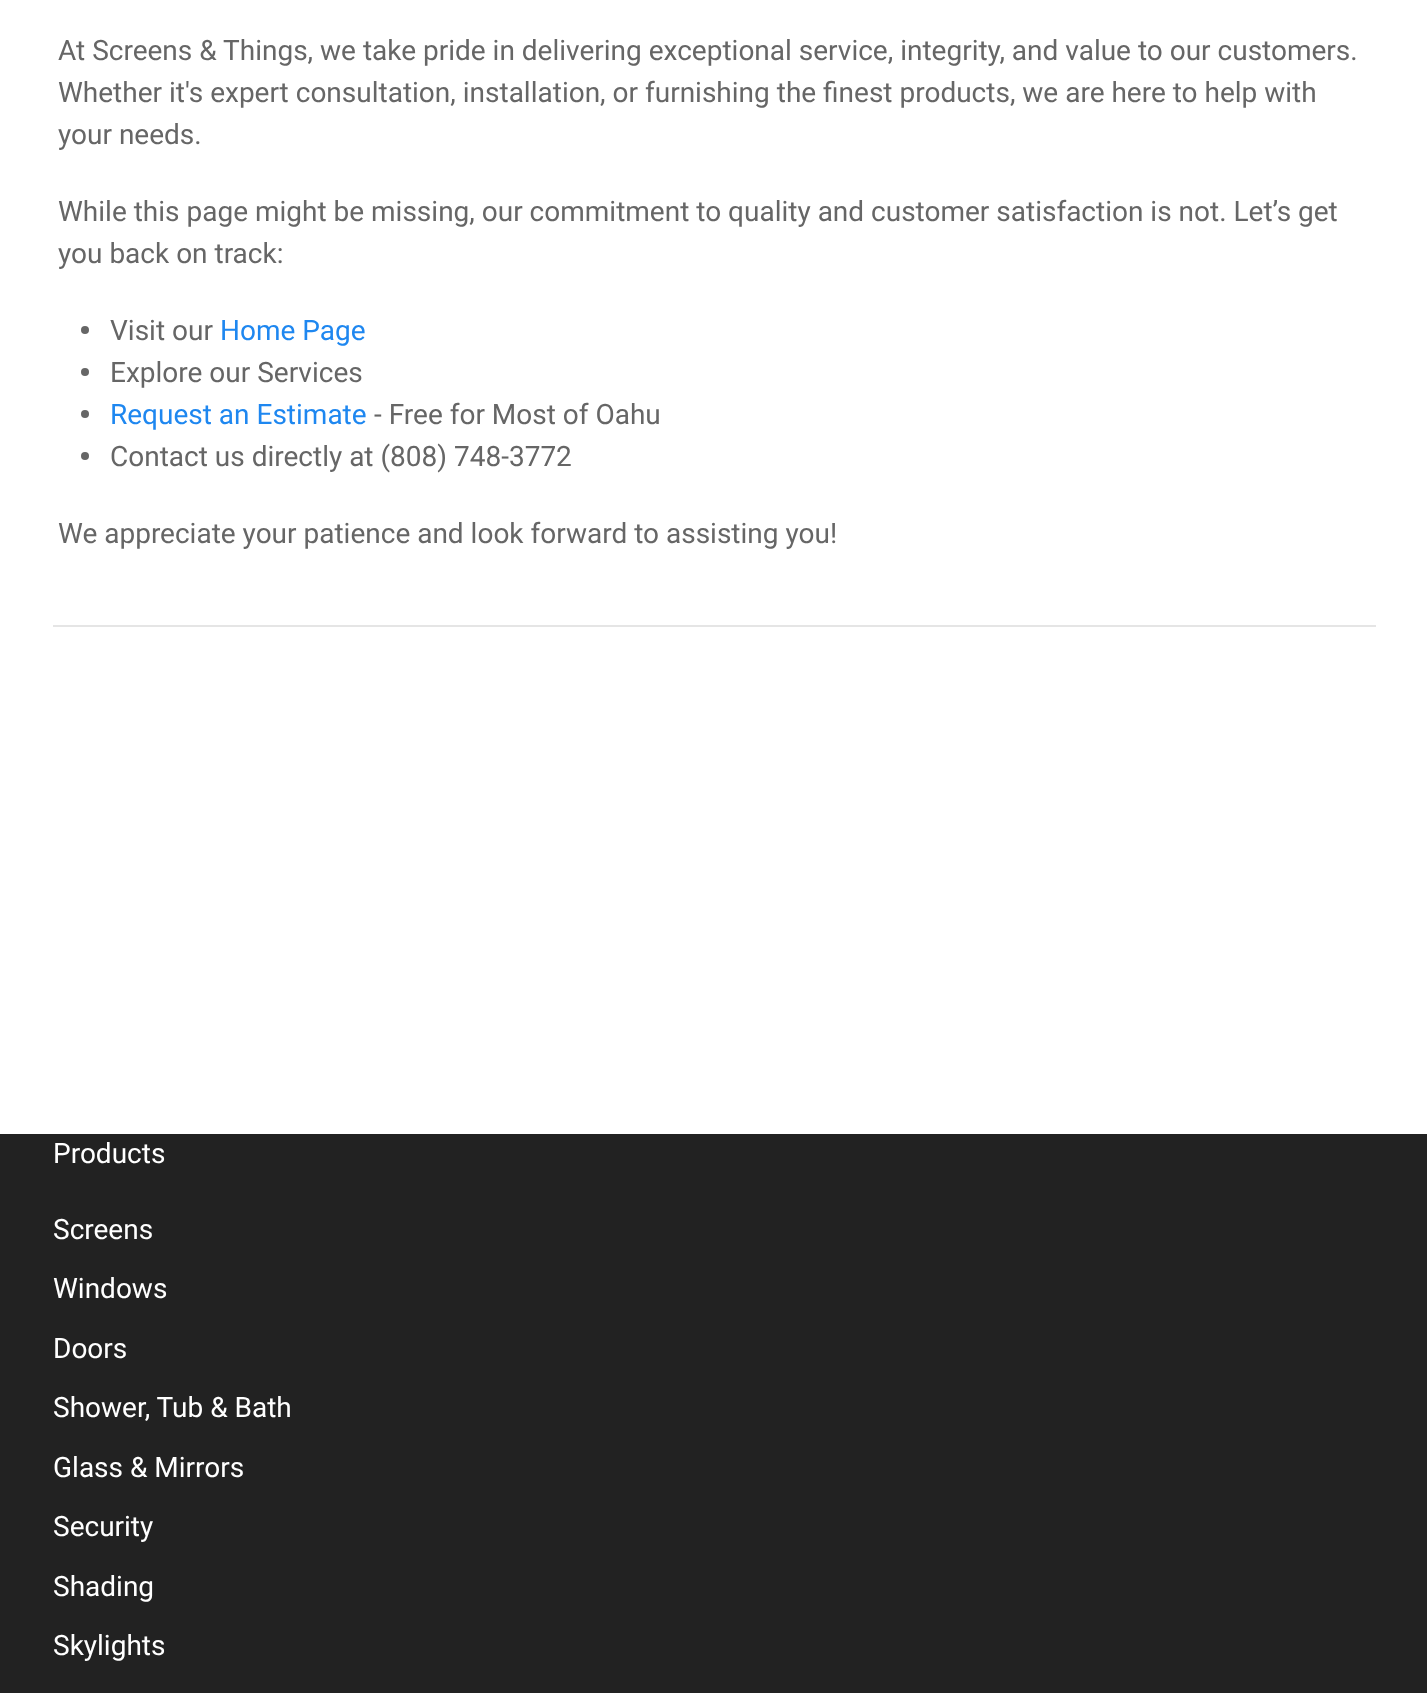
(async () => {
  const canvas = document.querySelector("canvas");
  canvas.width = 1427;
  canvas.height = 1693;
  const ctx = canvas.getContext("2d");
  ctx.miterLimit = 4;
  ctx.fontKerning = "normal";

  ctx.fillStyle = "#ffffff";
  ctx.fillRect(0, 0, 1427, 1693);
  ctx.fillStyle = "#666666";
  ctx.beginPath();
  ctx.arc(85, 330, 4, 0, Math.PI * 2);
  ctx.fill();
  ctx.beginPath();
  ctx.arc(85, 372, 4, 0, Math.PI * 2);
  ctx.fill();
  ctx.beginPath();
  ctx.arc(85, 414, 4, 0, Math.PI * 2);
  ctx.fill();
  ctx.beginPath();
  ctx.arc(85, 456, 4, 0, Math.PI * 2);
  ctx.fill();
  ctx.fillStyle = "#e5e5e5";
  ctx.fillRect(53, 625, 1323, 2);
  ctx.fillStyle = "#222222";
  ctx.fillRect(0, 1134, 1427, 559);
  ctx.font = "28px Roboto";
  ctx.fillStyle = "#666666";
  for (const [text, x, y] of [
    ["At Screens & Things, we take pride in delivering exceptional service, integrity, and value to our customers.", 58, 60],
    ["Whether it's expert consultation, installation, or furnishing the finest products, we are here to help with", 58, 102],
    ["your needs.", 58, 144],
    ["While this page might be missing, our commitment to quality and customer satisfaction is not. Let’s get", 58, 221],
    ["you back on track:", 58, 263],
    ["Visit our", 110, 340],
  ]) {
    ctx.fillText(text, x, y);
  }
  ctx.fillStyle = "#1e87f0";
  ctx.fillText("Home Page", 220, 340);
  ctx.fillStyle = "#666666";
  ctx.fillText("Explore our Services", 110, 382);
  ctx.fillStyle = "#1e87f0";
  ctx.fillText("Request an Estimate", 110, 424);
  ctx.fillStyle = "#666666";
  for (const [text, x, y] of [
    ["- Free for Most of Oahu", 374, 424],
    ["Contact us directly at (808) 748-3772", 110, 466],
    ["We appreciate your patience and look forward to assisting you!", 58, 543],
  ]) {
    ctx.fillText(text, x, y);
  }
  ctx.fillStyle = "#ffffff";
  for (const [text, x, y] of [
    ["Products", 53, 1163],
    ["Screens", 53, 1239],
    ["Windows", 53, 1298],
    ["Doors", 53, 1358],
    ["Shower, Tub & Bath", 53, 1417],
    ["Glass & Mirrors", 53, 1477],
    ["Security", 53, 1536],
    ["Shading", 53, 1596],
    ["Skylights", 53, 1655],
  ]) {
    ctx.fillText(text, x, y);
  }
})();
